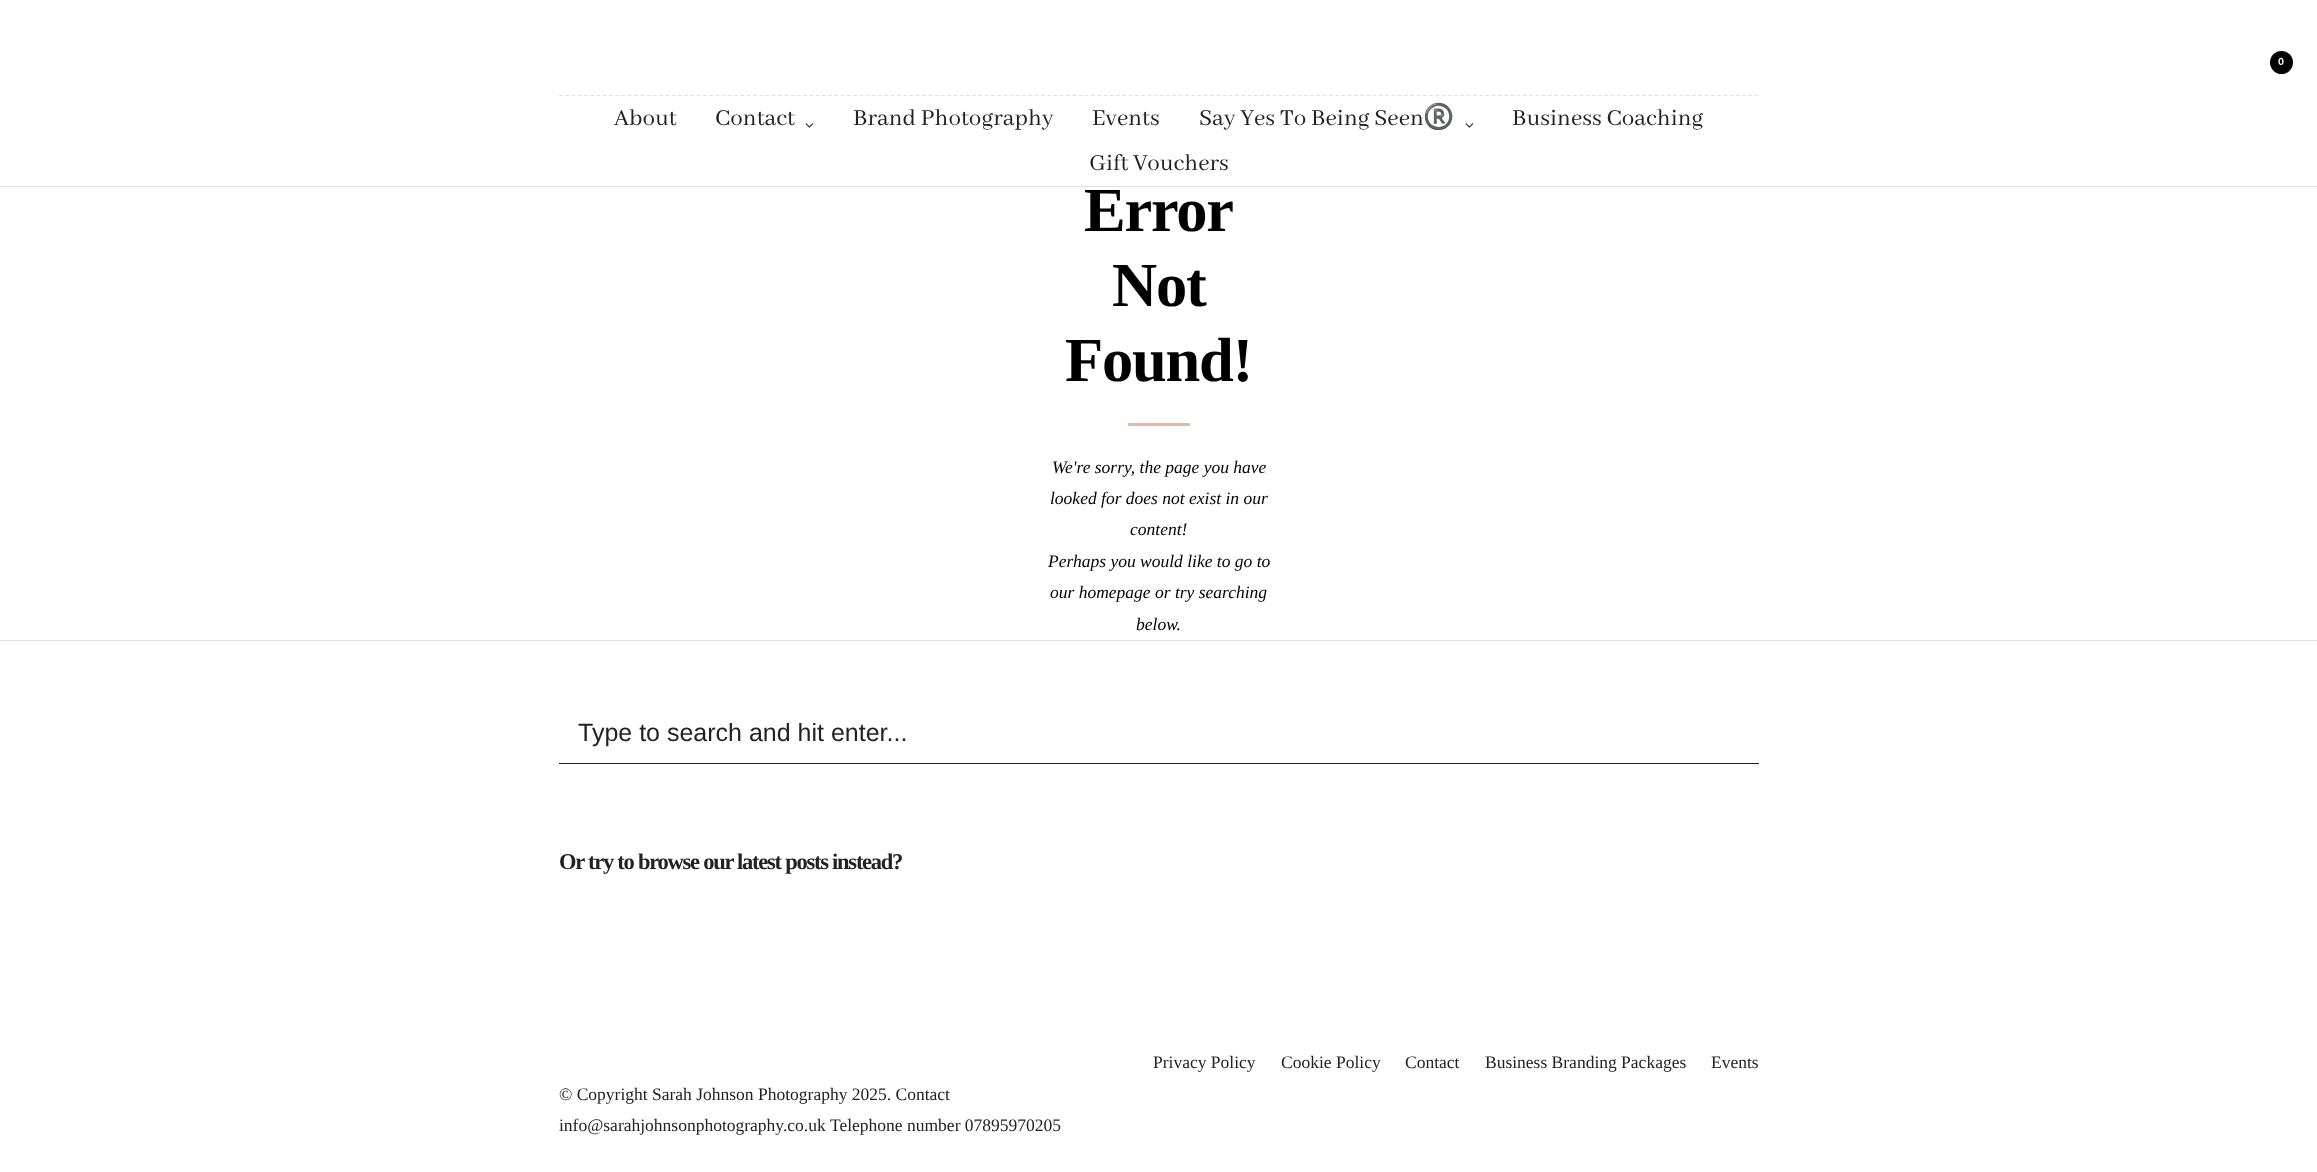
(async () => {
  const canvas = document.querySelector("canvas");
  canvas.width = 2317;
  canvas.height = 1172;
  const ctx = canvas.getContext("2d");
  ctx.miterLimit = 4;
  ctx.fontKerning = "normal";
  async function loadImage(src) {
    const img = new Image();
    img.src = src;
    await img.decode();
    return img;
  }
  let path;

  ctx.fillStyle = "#ffffff";
  ctx.fillRect(0, 0, 2317, 1172);
  ctx.fillStyle = "#e1e1e1";
  ctx.fillRect(0, 186, 2317, 1);
  ctx.fillStyle = "#000000";
  ctx.beginPath();
  ctx.arc(2281.5, 62.5, 11.5, 0, Math.PI * 2);
  ctx.fill();
  path = new Path2D("M559 95.5H1759");
  ctx.strokeStyle = "#e1e1e1";
  ctx.lineWidth = 1.2;
  ctx.setLineDash([3.75, 2.51]);
  ctx.stroke(path);
  ctx.drawImage(await loadImage("img/1.png"), 805, 123, 9, 5);
  ctx.drawImage(await loadImage("img/1.png"), 1465, 123, 9, 5);
  for (const [x, y, w, h, color] of [
    [0, 640, 2317, 1, "#e1e1e1"],
    [1128, 423, 62, 3, "#e7baa0"],
    [559, 763, 1200, 1, "#222222"],
  ]) {
    ctx.fillStyle = color;
    ctx.fillRect(x, y, w, h);
  }
  ctx.font = "600 11px Hind";
  ctx.fillStyle = "#ffffff";
  ctx.fillText("0", 2278, 65);
  ctx.font = "25px Abhaya Libre";
  ctx.fillStyle = "#222222";
  for (const [text, x, y] of [
    ["About", 614, 125],
    ["Contact", 715, 125],
    ["Brand Photography", 853, 125],
    ["Events", 1092, 125],
    ["Say Yes To Being Seen", 1199, 125],
  ]) {
    ctx.fillText(text, x, y);
  }
  ctx.font = "25px Noto Color Emoji";
  ctx.fillText("®️", 1423, 125);
  ctx.font = "25px Abhaya Libre";
  ctx.fillText("Business Coaching", 1512, 125);
  ctx.fillText("Gift Vouchers", 1089, 170);
  ctx.letterSpacing = "-1.25px";
  ctx.font = "bold 62.5px Liberation Serif";
  ctx.fillStyle = "#000000";
  for (const [text, x, y] of [
    ["Error", 1084, 231],
    ["Not", 1112, 306],
    ["Found!", 1065, 381],
  ]) {
    ctx.fillText(text, x, y);
  }
  ctx.letterSpacing = "0px";
  ctx.font = "italic 17.5px Liberation Serif";
  for (const [text, x, y] of [
    ["We're sorry, the page you have", 1052, 473],
    ["looked for does not exist in our", 1050, 504],
    ["content!", 1130, 535],
    ["Perhaps you would like to go to", 1048, 567],
    ["our homepage or try searching", 1050, 598],
    ["below.", 1136, 630],
  ]) {
    ctx.fillText(text, x, y);
  }
  ctx.font = "25px Liberation Sans";
  ctx.fillStyle = "#222222";
  ctx.fillText("Type to search and hit enter...", 578, 741);
  ctx.letterSpacing = "-1.25px";
  ctx.font = "bold 22.5px Liberation Serif";
  ctx.fillText("Or try to browse our latest posts instead?", 559, 869);
  ctx.letterSpacing = "0px";
  ctx.font = "17.5px Liberation Serif";
  for (const [text, x, y] of [
    ["Privacy Policy", 1153, 1068],
    ["Cookie Policy", 1281, 1068],
    ["Contact", 1405, 1068],
    ["Business Branding Packages", 1485, 1068],
    ["Events", 1711, 1068],
    ["© Copyright Sarah Johnson Photography 2025. Contact", 559, 1100],
    ["info@sarahjohnsonphotography.co.uk", 559, 1131],
    ["Telephone number 07895970205", 830, 1131],
  ]) {
    ctx.fillText(text, x, y);
  }
})();
